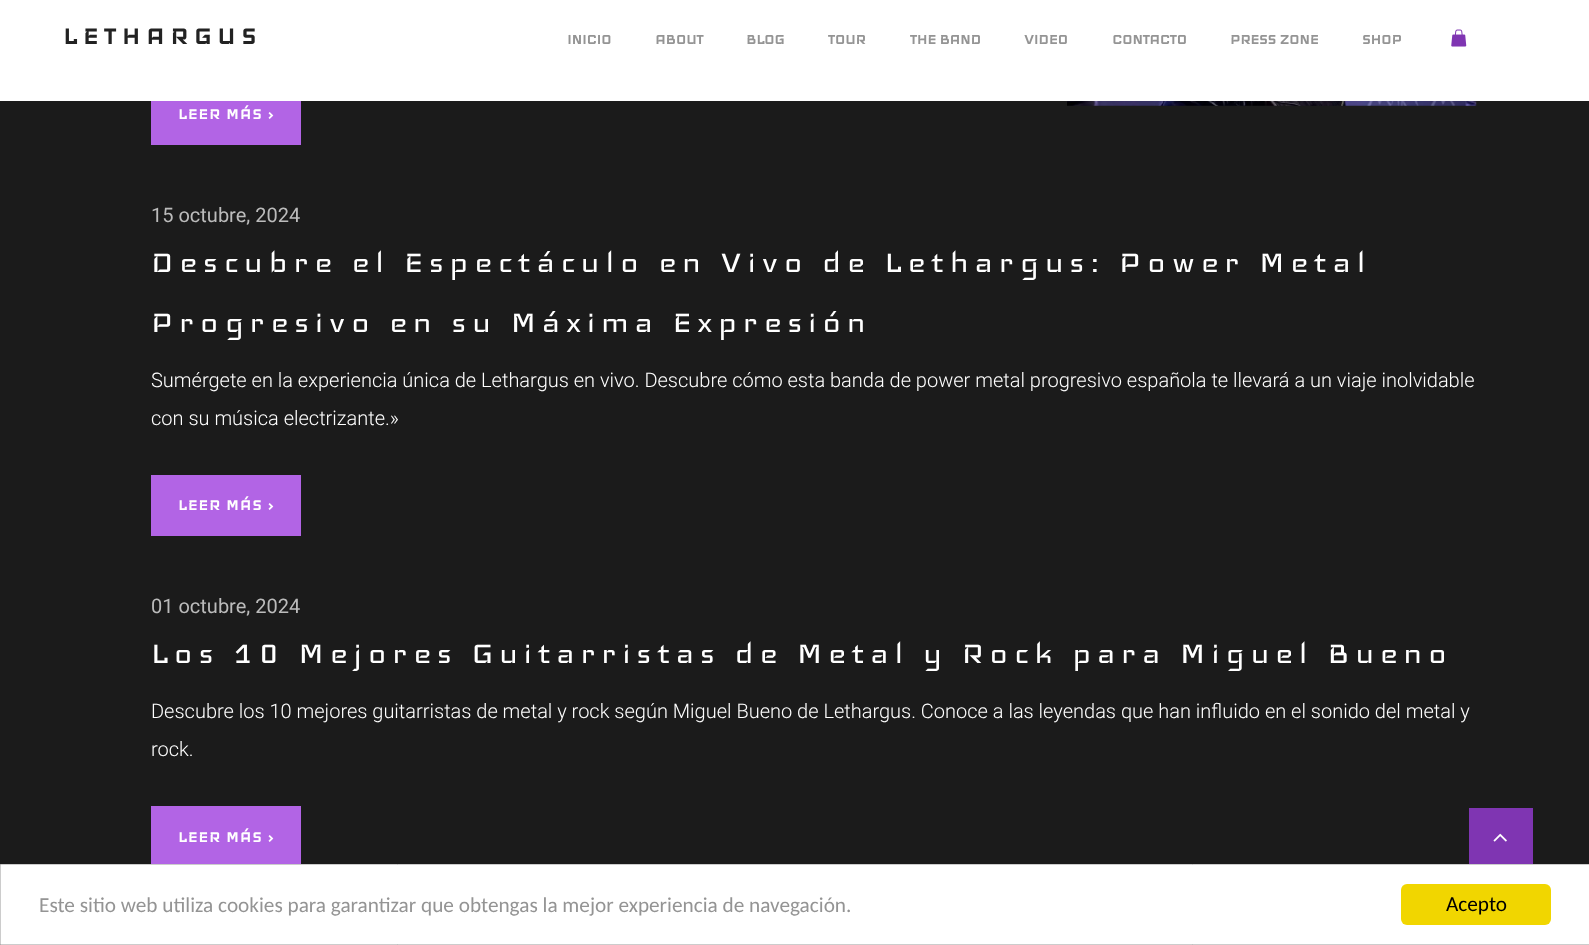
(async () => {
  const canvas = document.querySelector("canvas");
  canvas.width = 1589;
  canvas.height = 945;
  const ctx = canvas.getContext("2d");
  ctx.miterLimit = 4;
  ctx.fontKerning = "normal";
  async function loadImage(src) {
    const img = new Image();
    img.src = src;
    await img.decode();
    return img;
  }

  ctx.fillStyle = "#1b1b1b";
  ctx.fillRect(0, 0, 1589, 945);
  ctx.fillStyle = "#ffffff";
  ctx.fillRect(0, 0, 1589, 101);
  ctx.drawImage(await loadImage("img/1.png"), 1451, 29, 16, 18);
  ctx.drawImage(await loadImage("img/2.png"), 1067, 101, 410, 5);
  for (const [x, y, w, h, color] of [
    [151, 101, 150, 44, "#b264e5"],
    [151, 475, 150, 61, "#b264e5"],
    [151, 806, 150, 58, "#b264e5"],
    [1469, 808, 64, 56, "#7f35b2"],
  ]) {
    ctx.fillStyle = color;
    ctx.fillRect(x, y, w, h);
  }
  ctx.drawImage(await loadImage("img/3.png"), 1493, 833, 14, 9);
  ctx.fillStyle = "#ffffff";
  ctx.beginPath();
  ctx.rect(0.5, 864.5, 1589, 80);
  ctx.fill();
  ctx.strokeStyle = "#cccccc";
  ctx.stroke();
  ctx.fillStyle = "#f1d600";
  ctx.beginPath();
  ctx.roundRect(1401, 884, 150, 41, 6);
  ctx.fill();
  ctx.letterSpacing = "6.25px";
  ctx.font = "bold 30px Iceland";
  ctx.fillStyle = "#222222";
  ctx.fillText("LETHARGUS", 63, 44);
  ctx.letterSpacing = "0px";
  ctx.font = "bold 17.5px Iceland";
  ctx.fillStyle = "#949494";
  for (const [text, x, y] of [
    ["INICIO", 567, 44],
    ["ABOUT", 655, 44],
    ["BLOG", 746, 44],
    ["TOUR", 828, 44],
    ["THE BAND", 910, 44],
    ["VIDEO", 1024, 44],
    ["CONTACTO", 1112, 44],
    ["PRESS ZONE", 1230, 44],
    ["SHOP", 1362, 44],
  ]) {
    ctx.fillText(text, x, y);
  }
  ctx.letterSpacing = "1.25px";
  ctx.font = "bold 18.75px Iceland";
  ctx.fillStyle = "#ffffff";
  ctx.fillText("LEER MÁS ›", 178, 119);
  ctx.letterSpacing = "0px";
  ctx.font = "20px Roboto";
  ctx.fillStyle = "#bbbbbb";
  ctx.fillText("15 octubre, 2024", 151, 222);
  ctx.letterSpacing = "6.25px";
  ctx.font = "37.5px Iceland";
  ctx.fillStyle = "#ffffff";
  ctx.fillText("Descubre el Espectáculo en Vivo de Lethargus: Power Metal", 151, 272);
  ctx.fillText("Progresivo en su Máxima Expresión", 151, 332);
  ctx.letterSpacing = "0px";
  ctx.font = "300 20px Roboto";
  ctx.fillText("Sumérgete en la experiencia única de Lethargus en vivo. Descubre cómo esta banda de power metal progresivo española te llevará a un viaje inolvidable", 151, 387);
  ctx.fillText("con su música electrizante.»", 151, 425);
  ctx.letterSpacing = "1.25px";
  ctx.font = "bold 18.75px Iceland";
  ctx.fillText("LEER MÁS ›", 178, 510);
  ctx.letterSpacing = "0px";
  ctx.font = "20px Roboto";
  ctx.fillStyle = "#bbbbbb";
  ctx.fillText("01 octubre, 2024", 151, 613);
  ctx.letterSpacing = "6.25px";
  ctx.font = "37.5px Iceland";
  ctx.fillStyle = "#ffffff";
  ctx.fillText("Los 10 Mejores Guitarristas de Metal y Rock para Miguel Bueno", 151, 663);
  ctx.letterSpacing = "0px";
  ctx.font = "300 20px Roboto";
  ctx.fillText("Descubre los 10 mejores guitarristas de metal y rock según Miguel Bueno de Lethargus. Conoce a las leyendas que han influido en el sonido del metal y", 151, 718);
  ctx.fillText("rock.", 151, 756);
  ctx.letterSpacing = "1.25px";
  ctx.font = "bold 18.75px Iceland";
  ctx.fillText("LEER MÁS ›", 178, 842);
  ctx.letterSpacing = "0px";
  ctx.font = "21.25px Carlito";
  ctx.fillStyle = "#949494";
  ctx.fillText("Este sitio web utiliza cookies para garantizar que obtengas la mejor experiencia de navegación.", 39, 912);
  ctx.fillStyle = "#000000";
  ctx.fillText("Acepto", 1446, 911);
})();
